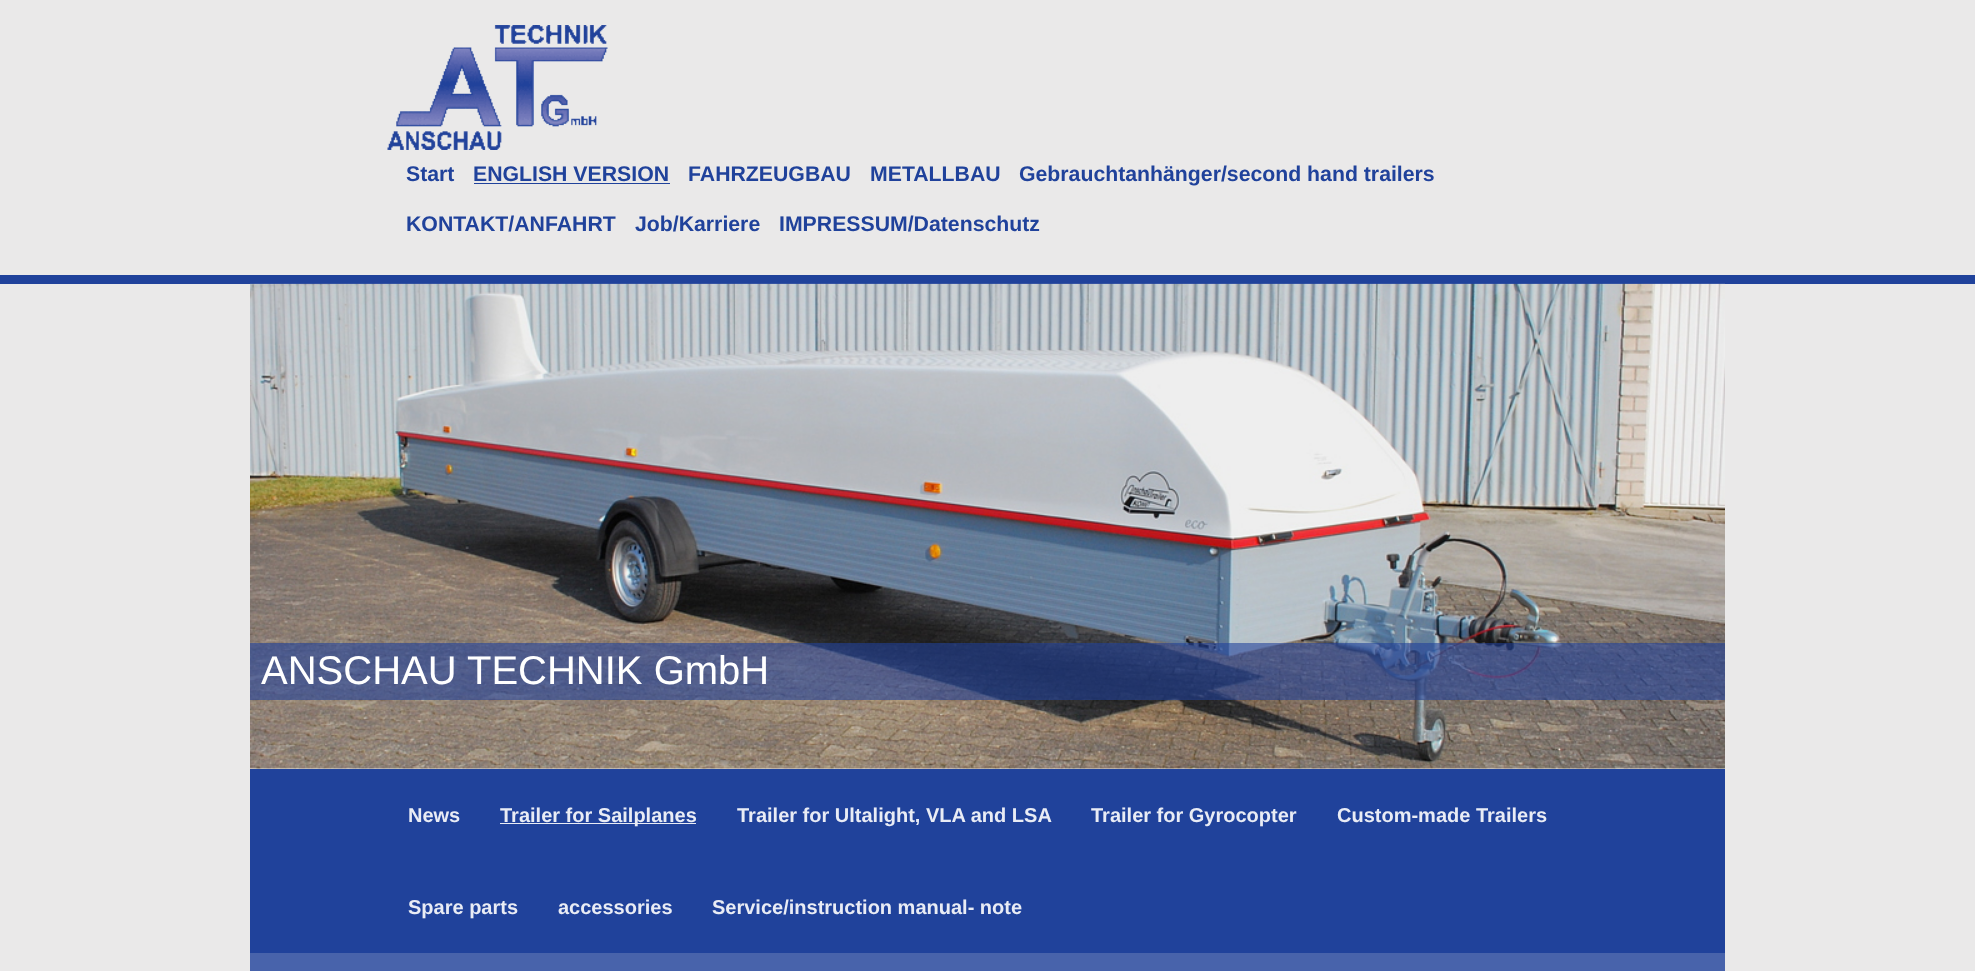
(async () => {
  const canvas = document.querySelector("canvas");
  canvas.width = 1975;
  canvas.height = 971;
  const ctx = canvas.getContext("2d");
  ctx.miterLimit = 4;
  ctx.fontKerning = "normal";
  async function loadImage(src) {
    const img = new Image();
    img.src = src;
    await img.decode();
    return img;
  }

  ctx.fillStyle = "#eae9e9";
  ctx.fillRect(0, 0, 1975, 971);
  ctx.fillStyle = "#20429b";
  ctx.fillRect(0, 275, 1975, 9);
  ctx.drawImage(await loadImage("img/1.png"), 387, 25, 221, 125);
  ctx.fillRect(474, 183, 196, 1);
  ctx.drawImage(await loadImage("img/2.png"), 250, 283, 1475, 1);
  ctx.fillStyle = "#eeeeee";
  ctx.fillRect(250, 768, 1475, 1);
  ctx.drawImage(await loadImage("img/3.png"), 250, 283, 1475, 486);
  for (const [x, y, w, h, color] of [
    [250, 643, 1475, 57, "rgba(32, 65, 154, 0.59)"],
    [250, 769, 1475, 184, "#20429b"],
    [500, 823, 196, 1, "#e9ecf5"],
    [250, 953, 1475, 18, "#4863ab"],
  ]) {
    ctx.fillStyle = color;
    ctx.fillRect(x, y, w, h);
  }
  ctx.font = "bold 21.25px Liberation Sans";
  ctx.fillStyle = "#20429b";
  for (const [text, x, y] of [
    ["Start", 406, 181],
    ["ENGLISH VERSION", 473, 181],
    ["FAHRZEUGBAU", 688, 181],
    ["METALLBAU", 870, 181],
    ["Gebrauchtanhänger/second hand trailers", 1019, 181],
    ["KONTAKT/ANFAHRT", 406, 231],
    ["Job/Karriere", 635, 231],
    ["IMPRESSUM/Datenschutz", 779, 231],
  ]) {
    ctx.fillText(text, x, y);
  }
  ctx.font = "40px Liberation Sans";
  ctx.fillStyle = "#ffffff";
  ctx.fillText("ANSCHAU TECHNIK GmbH", 261, 684);
  ctx.font = "bold 20px Liberation Sans";
  ctx.fillStyle = "#e9ecf5";
  for (const [text, x, y] of [
    ["News", 408, 822],
    ["Trailer for Sailplanes", 500, 822],
    ["Trailer for Ultalight, VLA and LSA", 737, 822],
    ["Trailer for Gyrocopter", 1091, 822],
    ["Custom-made Trailers", 1337, 822],
    ["Spare parts", 408, 914],
    ["accessories", 558, 914],
    ["Service/instruction manual- note", 712, 914],
  ]) {
    ctx.fillText(text, x, y);
  }
})();
